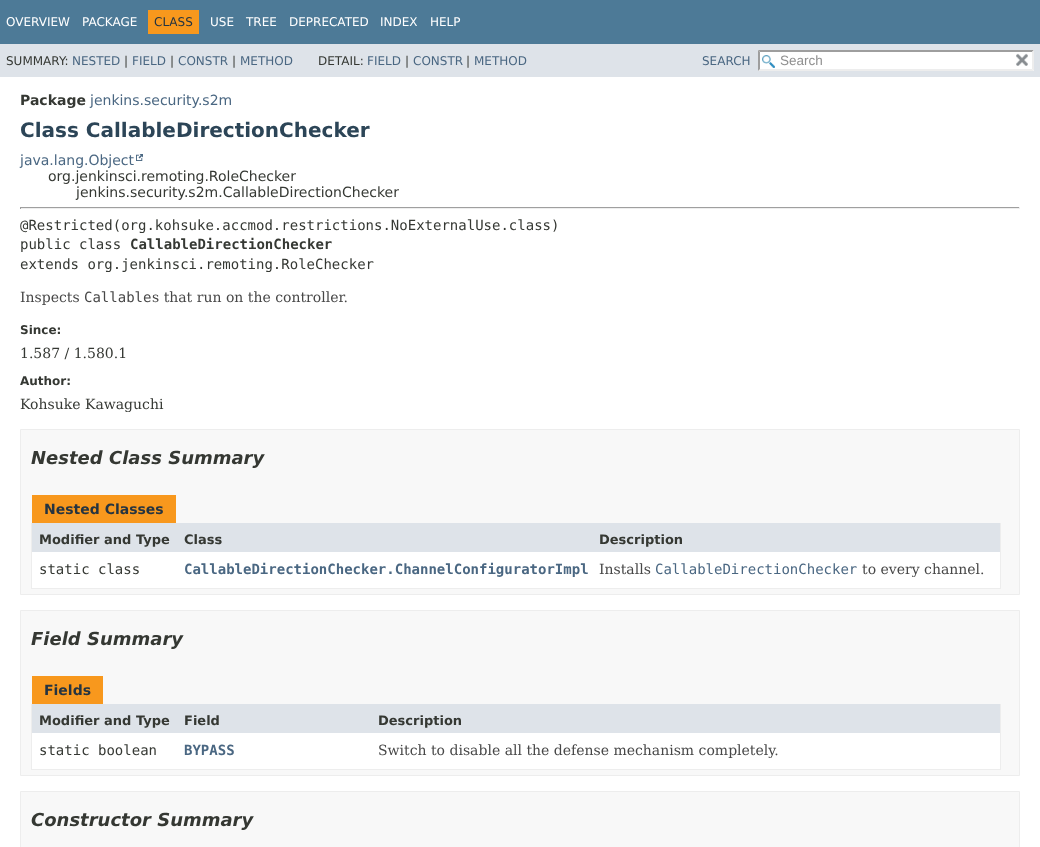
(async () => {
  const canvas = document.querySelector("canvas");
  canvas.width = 1040;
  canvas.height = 847;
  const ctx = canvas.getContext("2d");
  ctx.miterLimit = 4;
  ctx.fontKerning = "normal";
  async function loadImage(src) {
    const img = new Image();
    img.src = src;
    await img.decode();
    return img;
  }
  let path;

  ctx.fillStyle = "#ffffff";
  ctx.fillRect(0, 0, 1040, 847);
  for (const [x, y, w, h, color] of [
    [0, 0, 1040, 44, "#4d7a97"],
    [148, 10, 51, 24, "#f8981d"],
    [0, 44, 1040, 33, "#dee3e9"],
    [758, 50, 276, 21, "#ffffff"],
  ]) {
    ctx.fillStyle = color;
    ctx.fillRect(x, y, w, h);
  }
  ctx.drawImage(await loadImage("img/1.png"), 762, 55, 13, 13);
  ctx.fillStyle = "#9e9e9e";
  path = new Path2D("M758 50H1034L1032 52H760Z");
  ctx.fill(path);
  ctx.fillStyle = "#ededed";
  path = new Path2D("M1034 50V71L1032 69V52Z");
  ctx.fill(path);
  path = new Path2D("M1034 71H758L760 69H1032Z");
  ctx.fill(path);
  ctx.fillStyle = "#9e9e9e";
  path = new Path2D("M758 71V50L760 52V69Z");
  ctx.fill(path);
  ctx.drawImage(await loadImage("img/2.png"), 1016, 53, 12, 13);
  ctx.drawImage(await loadImage("img/3.png"), 136, 154, 7, 7);
  for (const [x, y, w, h, color] of [
    [20, 207, 1000, 1, "#9f9f9f"],
    [1019, 207, 1, 2, "#eeeeee"],
    [20, 208, 1000, 1, "#eeeeee"],
    [20, 207, 1, 2, "#9f9f9f"],
  ]) {
    ctx.fillStyle = color;
    ctx.fillRect(x, y, w, h);
  }
  ctx.fillStyle = "#f8f8f8";
  ctx.beginPath();
  ctx.rect(20.5, 429.5, 999, 165);
  ctx.fill();
  ctx.strokeStyle = "#ededed";
  ctx.stroke();
  for (const [x, y, w, h, color] of [
    [32, 495, 144, 28, "#f8981d"],
    [1000, 523, 1, 66, "#ededed"],
    [31, 588, 970, 1, "#ededed"],
    [31, 523, 1, 66, "#ededed"],
    [32, 523, 968, 29, "#dee3e9"],
    [32, 552, 968, 36, "#ffffff"],
  ]) {
    ctx.fillStyle = color;
    ctx.fillRect(x, y, w, h);
  }
  ctx.fillStyle = "#f8f8f8";
  ctx.beginPath();
  ctx.rect(20.5, 610.5, 999, 165);
  ctx.fill();
  ctx.stroke();
  for (const [x, y, w, h, color] of [
    [32, 676, 71, 28, "#f8981d"],
    [1000, 704, 1, 66, "#ededed"],
    [31, 769, 970, 1, "#ededed"],
    [31, 704, 1, 66, "#ededed"],
    [32, 704, 968, 29, "#dee3e9"],
    [32, 733, 968, 36, "#ffffff"],
  ]) {
    ctx.fillStyle = color;
    ctx.fillRect(x, y, w, h);
  }
  ctx.fillStyle = "#f8f8f8";
  ctx.beginPath();
  ctx.rect(20.5, 791.5, 999, 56);
  ctx.fill();
  ctx.stroke();
  ctx.font = "12px DejaVu Sans";
  ctx.fillStyle = "#ffffff";
  ctx.fillText("OVERVIEW", 6, 26);
  ctx.fillText("PACKAGE", 82, 26);
  ctx.fillStyle = "#253441";
  ctx.fillText("CLASS", 154, 26);
  ctx.fillStyle = "#ffffff";
  for (const [text, x, y] of [
    ["USE", 210, 26],
    ["TREE", 246, 26],
    ["DEPRECATED", 289, 26],
    ["INDEX", 380, 26],
    ["HELP", 430, 26],
  ]) {
    ctx.fillText(text, x, y);
  }
  ctx.fillStyle = "#353833";
  ctx.fillText("SUMMARY:", 6, 65);
  ctx.fillStyle = "#4a6782";
  ctx.fillText("NESTED", 72, 65);
  ctx.fillStyle = "#353833";
  ctx.fillText("|", 124, 65);
  ctx.fillStyle = "#4a6782";
  ctx.fillText("FIELD", 132, 65);
  ctx.fillStyle = "#353833";
  ctx.fillText("|", 170, 65);
  ctx.fillStyle = "#4a6782";
  ctx.fillText("CONSTR", 178, 65);
  ctx.fillStyle = "#353833";
  ctx.fillText("|", 232, 65);
  ctx.fillStyle = "#4a6782";
  ctx.fillText("METHOD", 240, 65);
  ctx.fillStyle = "#353833";
  ctx.fillText("DETAIL:", 318, 65);
  ctx.fillStyle = "#4a6782";
  ctx.fillText("FIELD", 367, 65);
  ctx.fillStyle = "#353833";
  ctx.fillText("|", 405, 65);
  ctx.fillStyle = "#4a6782";
  ctx.fillText("CONSTR", 413, 65);
  ctx.fillStyle = "#353833";
  ctx.fillText("|", 466, 65);
  ctx.fillStyle = "#4a6782";
  ctx.fillText("METHOD", 474, 65);
  ctx.fillText("SEARCH", 702, 65);
  ctx.font = "13.5px Liberation Sans";
  ctx.fillStyle = "#909090";
  ctx.fillText("Search", 780, 65);
  ctx.font = "bold 14px DejaVu Sans";
  ctx.fillStyle = "#353833";
  ctx.fillText("Package", 20, 105);
  ctx.font = "14px DejaVu Sans";
  ctx.fillStyle = "#4a6782";
  ctx.fillText("jenkins.security.s2m", 90, 105);
  ctx.font = "bold 20px DejaVu Sans";
  ctx.fillStyle = "#2c4557";
  ctx.fillText("Class CallableDirectionChecker", 20, 137);
  ctx.font = "14px DejaVu Sans";
  ctx.fillStyle = "#4a6782";
  ctx.fillText("java.lang.Object", 20, 165);
  ctx.fillStyle = "#353833";
  ctx.fillText("org.jenkinsci.remoting.RoleChecker", 48, 181);
  ctx.fillText("jenkins.security.s2m.CallableDirectionChecker", 76, 197);
  ctx.font = "14px DejaVu Sans Mono";
  ctx.fillText("@Restricted(org.kohsuke.accmod.restrictions.NoExternalUse.class)", 20, 230);
  ctx.fillText("public class", 20, 249);
  ctx.font = "bold 14px DejaVu Sans Mono";
  ctx.fillText("CallableDirectionChecker", 130, 249);
  ctx.font = "14px DejaVu Sans Mono";
  ctx.fillText("extends org.jenkinsci.remoting.RoleChecker", 20, 269);
  ctx.font = "14px DejaVu Serif";
  ctx.fillStyle = "#474747";
  ctx.fillText("Inspects", 20, 302);
  ctx.font = "14px DejaVu Sans Mono";
  ctx.fillText("Callable", 84, 302);
  ctx.font = "14px DejaVu Serif";
  ctx.fillText("s that run on the controller.", 152, 302);
  ctx.font = "bold 12px DejaVu Sans";
  ctx.fillStyle = "#353833";
  ctx.fillText("Since:", 20, 334);
  ctx.font = "14px DejaVu Serif";
  ctx.fillText("1.587 / 1.580.1", 20, 358);
  ctx.font = "bold 12px DejaVu Sans";
  ctx.fillText("Author:", 20, 385);
  ctx.font = "14px DejaVu Serif";
  ctx.fillText("Kohsuke Kawaguchi", 20, 409);
  ctx.font = "italic bold 18px DejaVu Sans";
  ctx.fillText("Nested Class Summary", 31, 464);
  ctx.font = "bold 14px DejaVu Sans";
  ctx.fillStyle = "#253441";
  ctx.fillText("Nested Classes", 44, 514);
  ctx.font = "bold 13px DejaVu Sans";
  ctx.fillStyle = "#353833";
  for (const [text, x, y] of [
    ["Modifier and Type", 39, 544],
    ["Class", 184, 544],
    ["Description", 599, 544],
  ]) {
    ctx.fillText(text, x, y);
  }
  ctx.font = "14px DejaVu Sans Mono";
  ctx.fillText("static class", 39, 574);
  ctx.font = "bold 14px DejaVu Sans Mono";
  ctx.fillStyle = "#4a6782";
  ctx.fillText("CallableDirectionChecker.ChannelConfiguratorImpl", 184, 574);
  ctx.font = "14px DejaVu Serif";
  ctx.fillStyle = "#474747";
  ctx.fillText("Installs", 599, 574);
  ctx.font = "14px DejaVu Sans Mono";
  ctx.fillStyle = "#4a6782";
  ctx.fillText("CallableDirectionChecker", 655, 574);
  ctx.font = "14px DejaVu Serif";
  ctx.fillStyle = "#474747";
  ctx.fillText("to every channel.", 862, 574);
  ctx.font = "italic bold 18px DejaVu Sans";
  ctx.fillStyle = "#353833";
  ctx.fillText("Field Summary", 31, 645);
  ctx.font = "bold 14px DejaVu Sans";
  ctx.fillStyle = "#253441";
  ctx.fillText("Fields", 44, 695);
  ctx.font = "bold 13px DejaVu Sans";
  ctx.fillStyle = "#353833";
  for (const [text, x, y] of [
    ["Modifier and Type", 39, 725],
    ["Field", 184, 725],
    ["Description", 378, 725],
  ]) {
    ctx.fillText(text, x, y);
  }
  ctx.font = "14px DejaVu Sans Mono";
  ctx.fillText("static boolean", 39, 755);
  ctx.font = "bold 14px DejaVu Sans Mono";
  ctx.fillStyle = "#4a6782";
  ctx.fillText("BYPASS", 184, 755);
  ctx.font = "14px DejaVu Serif";
  ctx.fillStyle = "#474747";
  ctx.fillText("Switch to disable all the defense mechanism completely.", 378, 755);
  ctx.font = "italic bold 18px DejaVu Sans";
  ctx.fillStyle = "#353833";
  ctx.fillText("Constructor Summary", 31, 826);
})();
